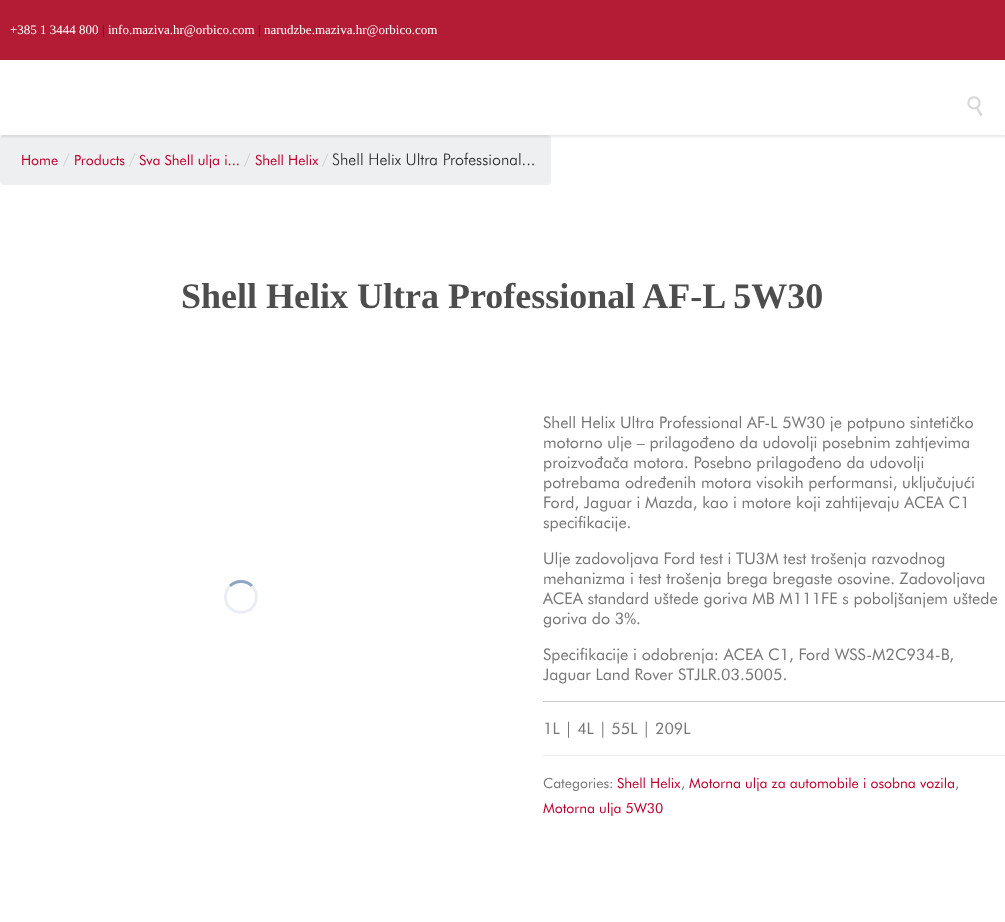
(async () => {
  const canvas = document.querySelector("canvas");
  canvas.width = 1005;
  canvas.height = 922;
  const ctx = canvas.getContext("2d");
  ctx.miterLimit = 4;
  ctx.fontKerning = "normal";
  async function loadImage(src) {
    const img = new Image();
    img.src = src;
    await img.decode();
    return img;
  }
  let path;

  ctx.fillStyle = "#ffffff";
  ctx.fillRect(0, 0, 1005, 922);
  ctx.fillStyle = "#edeff0";
  ctx.beginPath();
  ctx.roundRect(0, 135, 551, 50, 4);
  ctx.fill();
  ctx.save();
  ctx.beginPath();
  ctx.rect(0, 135, 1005, 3);
  ctx.clip();
  ctx.fillStyle = "rgba(0, 0, 0, 0.1)";
  ctx.filter = "blur(1.5px)";
  ctx.beginPath();
  ctx.rect(0, 2, 1005, 135);
  ctx.fill();
  ctx.filter = "none";
  ctx.restore();
  ctx.fillStyle = "#b41b35";
  ctx.fillRect(0, 0, 1005, 60);
  ctx.drawImage(await loadImage("img/1.png"), 967, 96, 16, 21);
  path = new Path2D("M230 586C236 580 246 580 252 586");
  ctx.strokeStyle = "#8ea6c5";
  ctx.lineWidth = 3;
  ctx.stroke(path);
  path = new Path2D("M252 586C255.5 589.5 257 595 256 600C252.5 618 225.5 615.5 225.5 597C225.5 593 227 589 230 586");
  ctx.strokeStyle = "rgba(114, 144, 182, 0.15)";
  ctx.stroke(path);
  ctx.fillStyle = "#cccccc";
  ctx.fillRect(543, 701, 462, 1);
  ctx.fillStyle = "#ededed";
  ctx.fillRect(543, 755, 462, 1);
  ctx.font = "13px Liberation Serif";
  ctx.fillStyle = "#ffffff";
  ctx.fillText("+385 1 3444 800", 10, 34);
  ctx.font = "bold 13px Liberation Serif";
  ctx.fillStyle = "#2b2f34";
  ctx.fillText("|", 102, 34);
  ctx.font = "13px Liberation Serif";
  ctx.fillStyle = "#ffffff";
  ctx.fillText("info.maziva.hr@orbico.com", 108, 34);
  ctx.font = "bold 13px Liberation Serif";
  ctx.fillStyle = "#2b2f34";
  ctx.fillText("|", 258, 34);
  ctx.font = "13px Liberation Serif";
  ctx.fillStyle = "#ffffff";
  ctx.fillText("narudzbe.maziva.hr@orbico.com", 264, 34);
  ctx.font = "14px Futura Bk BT";
  ctx.fillStyle = "#bc002e";
  ctx.fillText("Home", 21, 165);
  ctx.font = "300 16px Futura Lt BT";
  ctx.fillStyle = "#cccccc";
  ctx.fillText("/", 63, 165);
  ctx.font = "14px Futura Bk BT";
  ctx.fillStyle = "#bc002e";
  ctx.fillText("Products", 74, 165);
  ctx.font = "300 16px Futura Lt BT";
  ctx.fillStyle = "#cccccc";
  ctx.fillText("/", 129, 165);
  ctx.font = "14px Futura Bk BT";
  ctx.fillStyle = "#bc002e";
  ctx.fillText("Sva Shell ulja i...", 139, 165);
  ctx.font = "300 16px Futura Lt BT";
  ctx.fillStyle = "#cccccc";
  ctx.fillText("/", 244, 165);
  ctx.font = "14px Futura Bk BT";
  ctx.fillStyle = "#bc002e";
  ctx.fillText("Shell Helix", 255, 165);
  ctx.font = "300 16px Futura Lt BT";
  ctx.fillStyle = "#cccccc";
  ctx.fillText("/", 322, 165);
  ctx.fillStyle = "#27272a";
  ctx.fillText("Shell Helix Ultra Professional...", 332, 165);
  ctx.font = "bold 36px Liberation Serif";
  ctx.fillStyle = "#4d4d4d";
  ctx.fillText("Shell Helix Ultra Professional AF-L 5W30", 181, 308);
  ctx.font = "16px Futura Bk BT";
  ctx.fillStyle = "#767676";
  for (const [text, x, y] of [
    ["Shell Helix Ultra Professional AF-L 5W30 je potpuno sintetičko", 543, 428],
    ["motorno ulje – prilagođeno da udovolji posebnim zahtjevima", 543, 448],
    ["proizvođača motora. Posebno prilagođeno da udovolji", 543, 468],
    ["potrebama određenih motora visokih performansi, uključujući", 543, 488],
    ["Ford, Jaguar i Mazda, kao i motore koji zahtijevaju ACEA C1", 543, 508],
    ["specifikacije.", 543, 528],
    ["Ulje zadovoljava Ford test i TU3M test trošenja razvodnog", 543, 564],
    ["mehanizma i test trošenja brega bregaste osovine. Zadovoljava", 543, 584],
    ["ACEA standard uštede goriva MB M111FE s poboljšanjem uštede", 543, 604],
    ["goriva do 3%.", 543, 624],
    ["Specifikacije i odobrenja: ACEA C1, Ford WSS-M2C934-B,", 543, 660],
    ["Jaguar Land Rover STJLR.03.5005.", 543, 680],
    ["1L | 4L | 55L | 209L", 543, 734],
  ]) {
    ctx.fillText(text, x, y);
  }
  ctx.font = "14px Futura Bk BT";
  ctx.fillText("Categories:", 543, 788);
  ctx.fillStyle = "#bc002e";
  ctx.fillText("Shell Helix", 617, 788);
  ctx.fillStyle = "#767676";
  ctx.fillText(",", 681, 788);
  ctx.fillStyle = "#bc002e";
  ctx.fillText("Motorna ulja za automobile i osobna vozila", 689, 788);
  ctx.fillStyle = "#767676";
  ctx.fillText(",", 955, 788);
  ctx.fillStyle = "#bc002e";
  ctx.fillText("Motorna ulja 5W30", 543, 813);
})();
